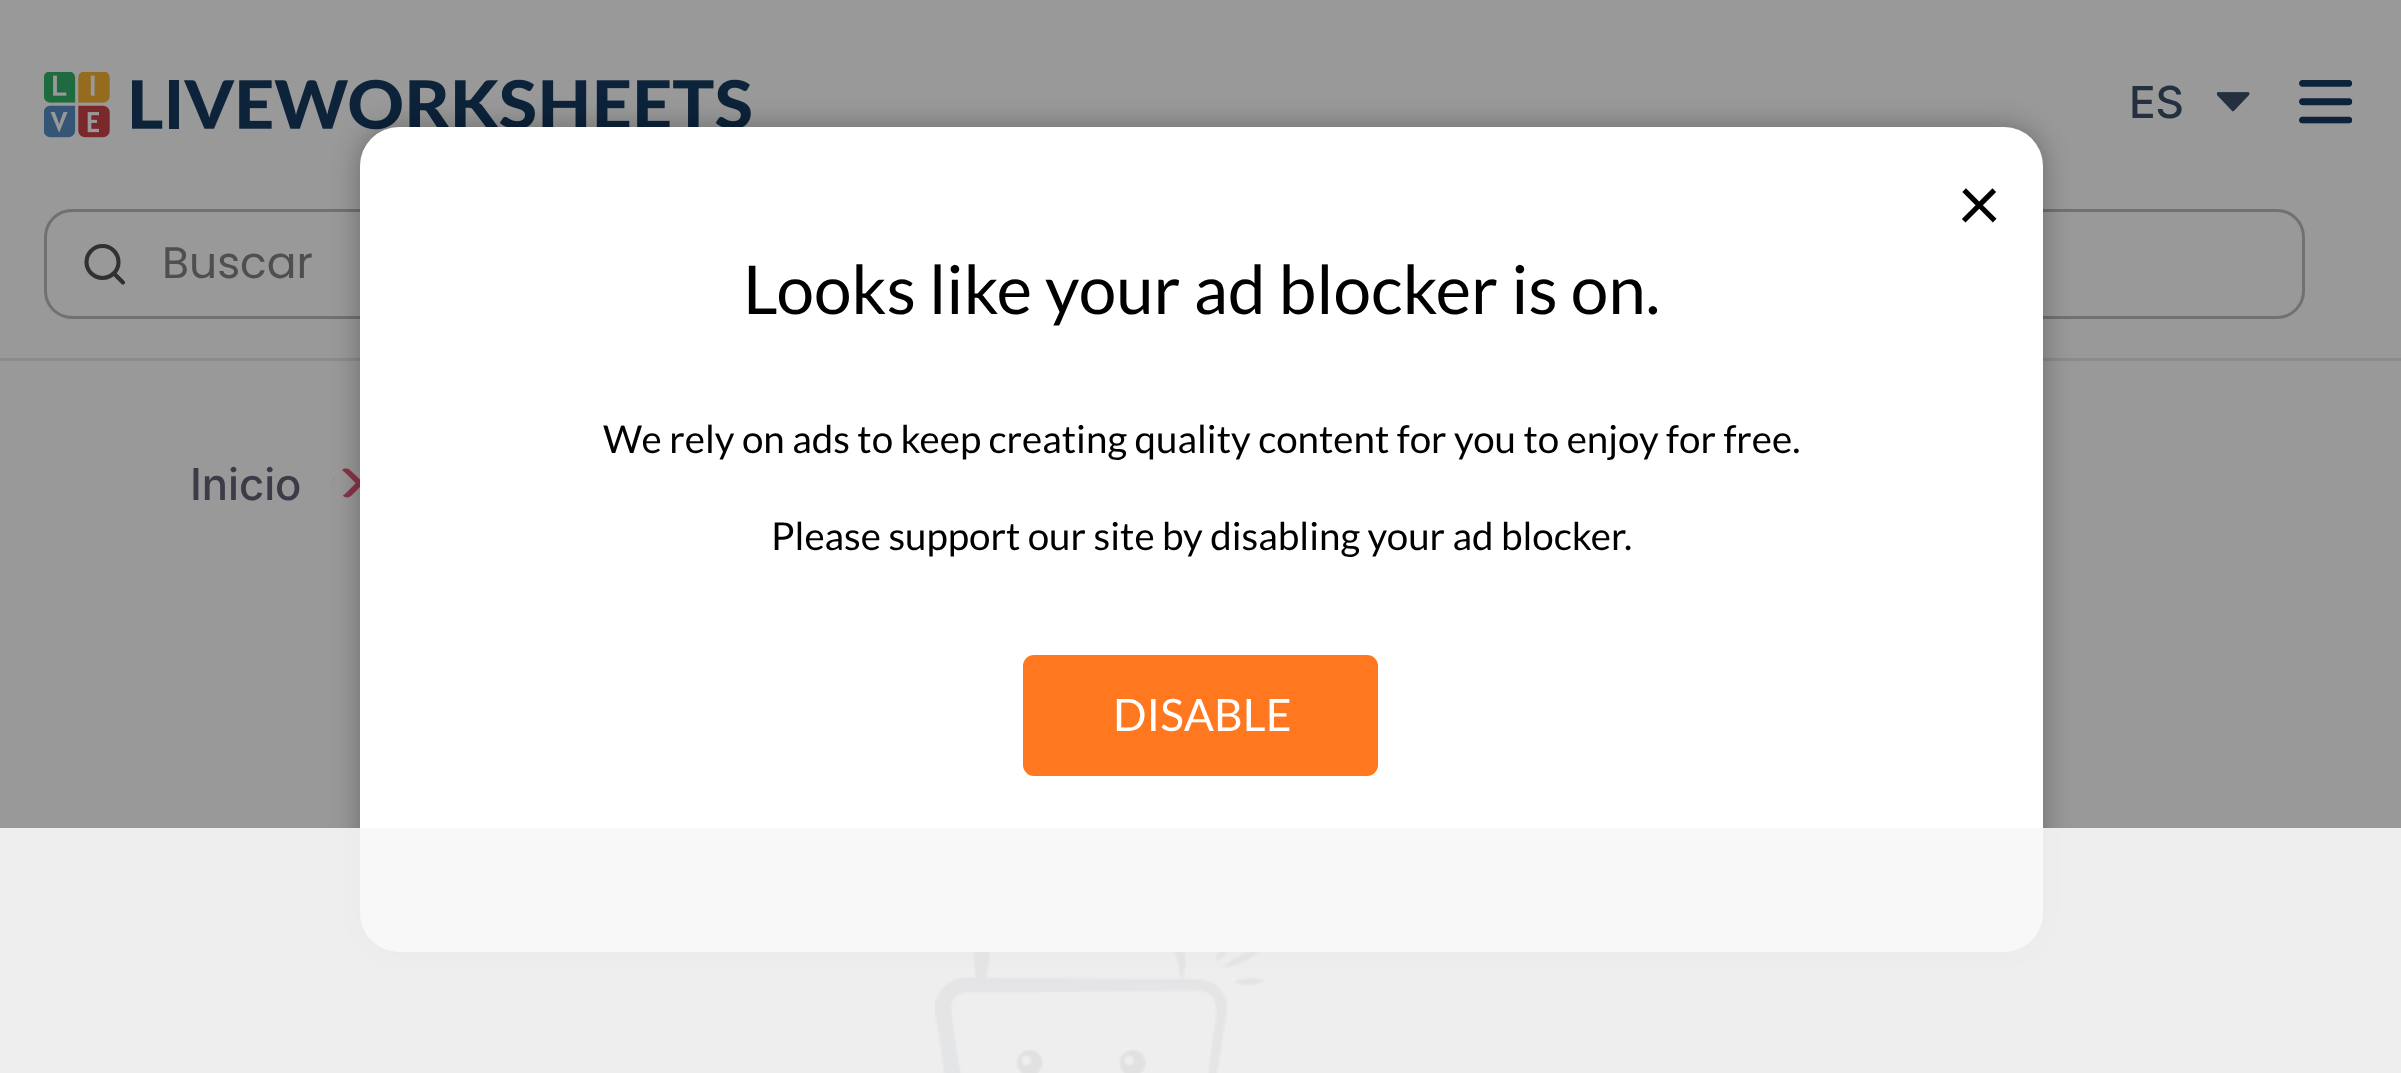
(async () => {
  const canvas = document.querySelector("canvas");
  canvas.width = 2401;
  canvas.height = 1073;
  const ctx = canvas.getContext("2d");
  ctx.miterLimit = 4;
  ctx.fontKerning = "normal";
  async function loadImage(src) {
    const img = new Image();
    img.src = src;
    await img.decode();
    return img;
  }
  let path;

  ctx.fillStyle = "#999999";
  ctx.fillRect(0, 0, 2401, 1073);
  ctx.fillStyle = "#898b8d";
  ctx.fillRect(0, 358, 2401, 3);
  ctx.drawImage(await loadImage("img/1.png"), 44, 72, 707, 66);
  ctx.drawImage(await loadImage("img/2.png"), 2217, 92, 33, 20);
  ctx.drawImage(await loadImage("img/3.png"), 2299, 80, 54, 44);
  ctx.beginPath();
  ctx.roundRect(45.5, 210.5, 2258, 107, 26.5);
  ctx.strokeStyle = "#717171";
  ctx.lineWidth = 3;
  ctx.stroke();
  ctx.beginPath();
  ctx.arc(102.5, 262, 16, 0, Math.PI * 2);
  ctx.strokeStyle = "#313131";
  ctx.lineWidth = 4.1;
  ctx.stroke();
  path = new Path2D("M123 282.5L114 273.5");
  ctx.lineCap = "round";
  ctx.lineJoin = "round";
  ctx.stroke(path);
  ctx.fillStyle = "#893448";
  path = new Path2D("M350.5 470.5L359.5 479C361.5 481.5 362 485.5 359.5 487.5L351 496C349 498 345 498 342.5 495.5L334 487C331.5 484.5 331.5 480.5 333.5 478.5L342 470C344.5 468 348 468 350.5 470.5ZM346.5 474L354 481.5C356 483.5 356.5 483 354 485L348.5 490.5C345.5 493.5 343 496 342.5 495.5L337 490C330.5 483.5 330 482 336.5 475.5L342 470Z");
  ctx.fill(path, "evenodd");
  ctx.drawImage(await loadImage("img/4.png"), 935, 952, 330, 121);
  ctx.save();
  path = new Path2D("M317 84H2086V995H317ZM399 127H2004C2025.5 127 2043 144.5 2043 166V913C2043 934.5 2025.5 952 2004 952H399C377.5 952 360 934.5 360 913V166C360 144.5 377.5 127 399 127Z");
  ctx.clip(path, "evenodd");
  ctx.fillStyle = "rgba(0, 0, 0, 0.3)";
  ctx.filter = "blur(14px)";
  ctx.beginPath();
  ctx.roundRect(360, 127, 1683, 825, 39);
  ctx.fill();
  ctx.filter = "none";
  ctx.restore();
  ctx.fillStyle = "#ffffff";
  ctx.beginPath();
  ctx.roundRect(360, 127, 1683, 825, 39);
  ctx.fill();
  ctx.fillStyle = "#ff771f";
  ctx.beginPath();
  ctx.roundRect(1023, 655, 355, 121, 11);
  ctx.fill();
  ctx.fillStyle = "rgba(247, 247, 247, 0.9)";
  ctx.fillRect(0, 828, 2401, 245);
  ctx.font = "500 44px Inter";
  ctx.fillStyle = "#243040";
  ctx.fillText("ES", 2129, 118);
  ctx.font = "44px Poppins";
  ctx.fillStyle = "#4f4f4f";
  ctx.fillText("Buscar", 162, 278);
  ctx.font = "500 44px Inter";
  ctx.fillStyle = "#3b3c48";
  ctx.fillText("Inicio", 190, 500);
  ctx.font = "77px Lato";
  ctx.fillStyle = "#000000";
  ctx.fillText("×", 1957, 231);
  ctx.font = "67.4px Lato";
  ctx.fillText("Looks like your ad blocker is on.", 743, 314);
  ctx.font = "38.5px Lato";
  ctx.fillText("We rely on ads to keep creating quality content for you to enjoy for free.", 603, 453);
  ctx.fillText("Please support our site by disabling your ad blocker.", 771, 550);
  ctx.font = "44.5px Lato";
  ctx.fillStyle = "#ffffff";
  ctx.fillText("DISABLE", 1113, 731);
})();
